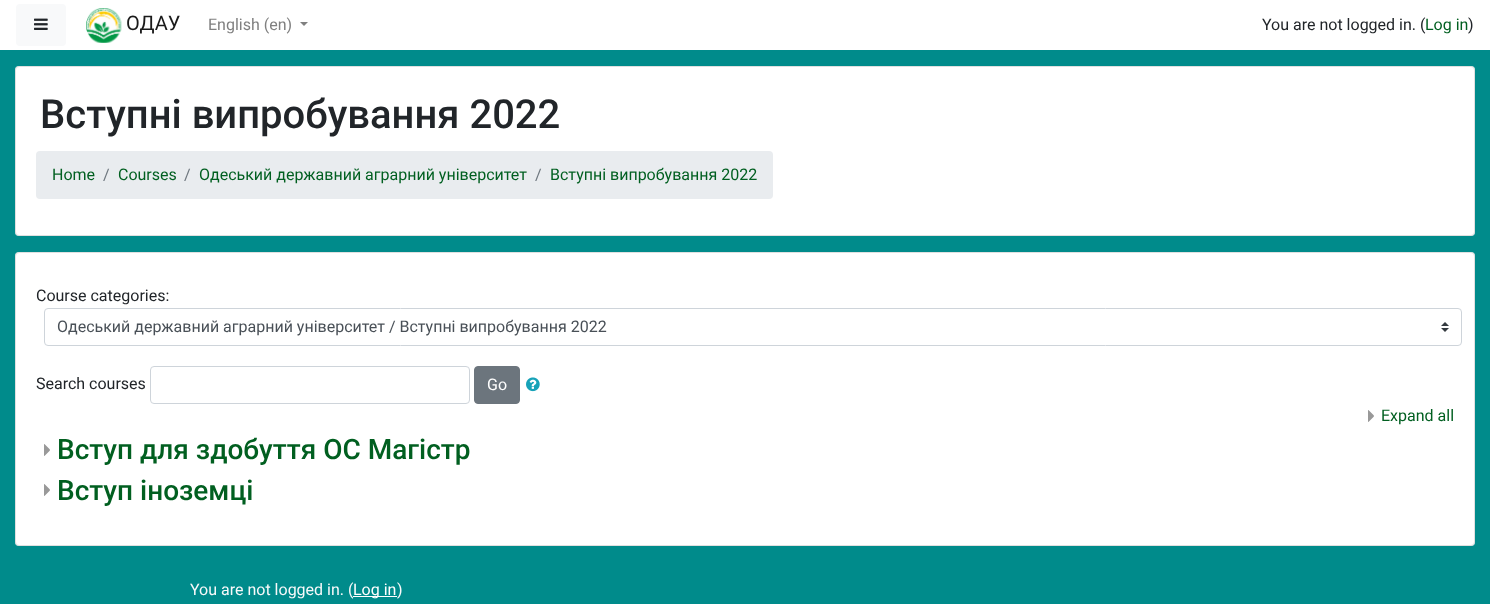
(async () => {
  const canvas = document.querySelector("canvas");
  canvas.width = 1490;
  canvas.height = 604;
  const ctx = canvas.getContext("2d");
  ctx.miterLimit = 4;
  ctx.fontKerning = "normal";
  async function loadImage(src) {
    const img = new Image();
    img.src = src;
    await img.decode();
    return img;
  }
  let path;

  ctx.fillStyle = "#008b8b";
  ctx.fillRect(0, 0, 1490, 604);
  ctx.fillStyle = "#ffffff";
  ctx.fillRect(0, 0, 1490, 50);
  ctx.fillStyle = "#f8f9fa";
  ctx.beginPath();
  ctx.roundRect(16, 4, 50, 42, 4);
  ctx.fill();
  ctx.drawImage(await loadImage("img/1.png"), 34, 18, 14, 12);
  ctx.drawImage(await loadImage("img/2.png"), 86, 8, 36, 35);
  ctx.fillStyle = "#808080";
  path = new Path2D("M300 22H308L304 26Z");
  ctx.fill(path);
  ctx.fillStyle = "#ffffff";
  ctx.beginPath();
  ctx.roundRect(15, 66, 1460, 170, 4);
  ctx.fill();
  ctx.beginPath();
  ctx.roundRect(15.5, 66.5, 1459, 169, 3.5);
  ctx.strokeStyle = "rgba(0, 0, 0, 0.12)";
  ctx.stroke();
  ctx.fillStyle = "#e9ecef";
  ctx.beginPath();
  ctx.roundRect(36, 151, 737, 48, 4);
  ctx.fill();
  ctx.fillStyle = "#ffffff";
  ctx.beginPath();
  ctx.roundRect(15, 252, 1460, 294, 4);
  ctx.fill();
  ctx.beginPath();
  ctx.roundRect(15.5, 252.5, 1459, 293, 3.5);
  ctx.stroke();
  ctx.drawImage(await loadImage("img/3.png"), 1441, 322, 8, 10);
  ctx.beginPath();
  ctx.roundRect(44.5, 308.5, 1417, 37, 3.5);
  ctx.strokeStyle = "#ced4da";
  ctx.stroke();
  ctx.beginPath();
  ctx.roundRect(150.5, 366.5, 319, 37, 3.5);
  ctx.stroke();
  ctx.fillStyle = "#6c757d";
  ctx.beginPath();
  ctx.roundRect(474.5, 366.5, 45, 37, 3.5);
  ctx.fill();
  ctx.strokeStyle = "#6c757d";
  ctx.stroke();
  ctx.drawImage(await loadImage("img/4.png"), 526, 377, 14, 15);
  ctx.drawImage(await loadImage("img/5.png"), 1368, 410, 6, 12);
  ctx.drawImage(await loadImage("img/5.png"), 44, 444, 6, 12);
  ctx.drawImage(await loadImage("img/5.png"), 44, 484, 6, 12);
  ctx.font = "20px Roboto";
  ctx.fillStyle = "#1a1a1a";
  ctx.fillText("ОДАУ", 126, 30);
  ctx.font = "16px Roboto";
  ctx.fillStyle = "#808080";
  ctx.fillText("English (en)", 208, 30);
  ctx.fillStyle = "#212529";
  ctx.fillText("You are not logged in. (", 1262, 30);
  ctx.fillStyle = "#015f20";
  ctx.fillText("Log in", 1425, 30);
  ctx.fillStyle = "#212529";
  ctx.fillText(")", 1468, 30);
  ctx.font = "500 40px Roboto";
  ctx.fillText("Вступні випробування 2022", 40, 128);
  ctx.font = "16px Roboto";
  ctx.fillStyle = "#015f20";
  ctx.fillText("Home", 52, 180);
  ctx.fillStyle = "#6c757d";
  ctx.fillText("/", 103, 180);
  ctx.fillStyle = "#015f20";
  ctx.fillText("Courses", 118, 180);
  ctx.fillStyle = "#6c757d";
  ctx.fillText("/", 184, 180);
  ctx.fillStyle = "#015f20";
  ctx.fillText("Одеський державний аграрний університет", 199, 180);
  ctx.fillStyle = "#6c757d";
  ctx.fillText("/", 535, 180);
  ctx.fillStyle = "#015f20";
  ctx.fillText("Вступні випробування 2022", 550, 180);
  ctx.fillStyle = "#212529";
  ctx.fillText("Course categories:", 36, 301);
  ctx.fillStyle = "#495057";
  ctx.fillText("Одеський державний аграрний університет / Вступні випробування 2022", 57, 332);
  ctx.fillStyle = "#212529";
  ctx.fillText("Search courses", 36, 389);
  ctx.fillStyle = "#ffffff";
  ctx.fillText("Go", 487, 390);
  ctx.fillStyle = "#015f20";
  ctx.fillText("Expand all", 1381, 421);
  ctx.font = "500 28px Roboto";
  ctx.fillText("Вступ для здобуття ОС Магістр", 57, 459);
  ctx.fillText("Вступ іноземці", 57, 500);
  ctx.font = "16px Roboto";
  ctx.fillStyle = "#f8f9fa";
  ctx.fillText("You are not logged in. (", 190, 595);
  ctx.fillStyle = "#ffffff";
  ctx.fillRect(353, 596, 44, 1);
  ctx.fillText("Log in", 353, 595);
  ctx.fillStyle = "#f8f9fa";
  ctx.fillText(")", 397, 595);
})();
